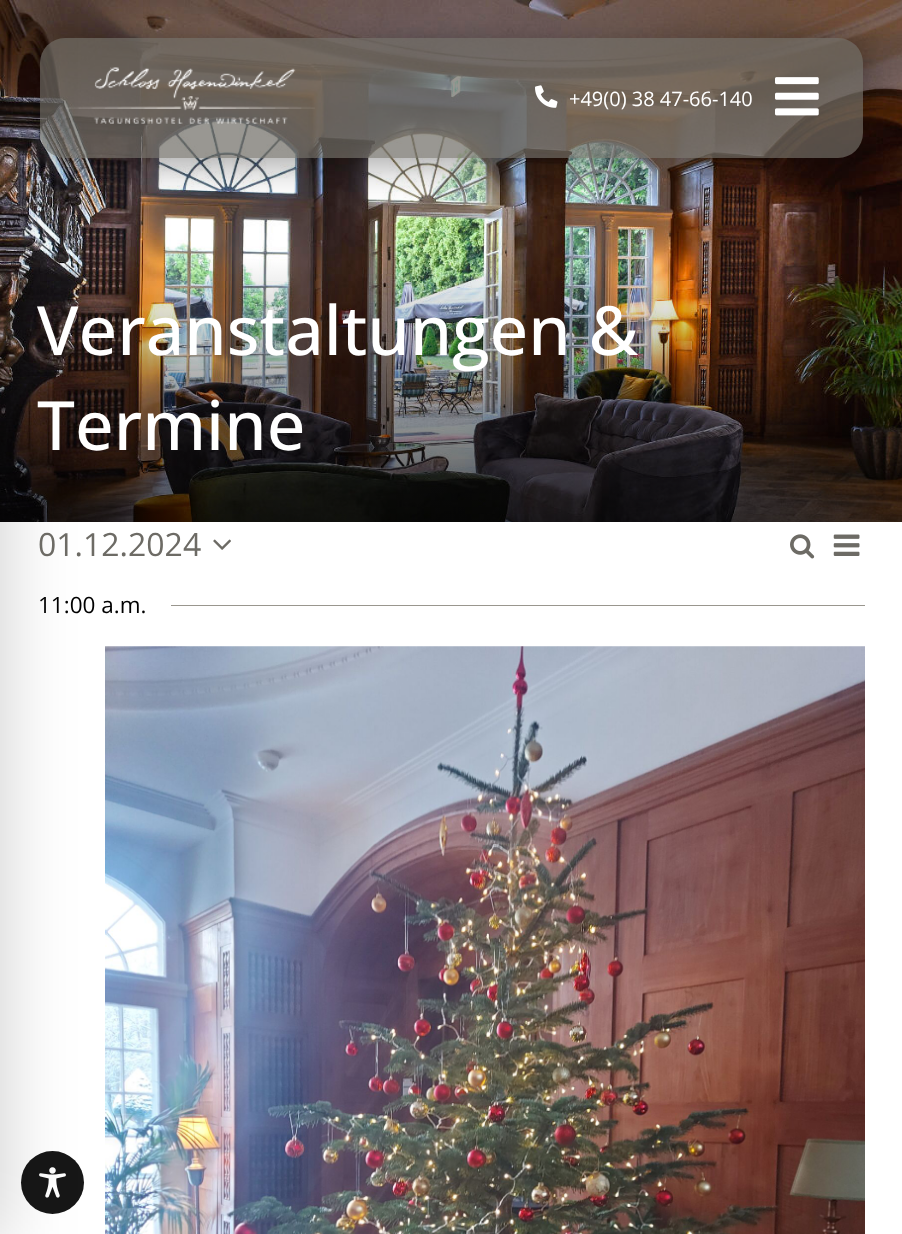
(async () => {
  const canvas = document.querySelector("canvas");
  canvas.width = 902;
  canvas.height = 1234;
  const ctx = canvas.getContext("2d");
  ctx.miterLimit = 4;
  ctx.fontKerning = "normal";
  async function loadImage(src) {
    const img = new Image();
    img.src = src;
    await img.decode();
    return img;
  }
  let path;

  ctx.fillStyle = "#ffffff";
  ctx.fillRect(0, 0, 902, 1234);
  ctx.fillStyle = "#171717";
  ctx.beginPath();
  ctx.arc(52.5, 1182.5, 31.5, 0, Math.PI * 2);
  ctx.fill();
  ctx.drawImage(await loadImage("img/1.png"), 39, 1167, 27, 31);
  ctx.drawImage(await loadImage("img/5.png"), 0, 0, 902, 522);
  ctx.save();
  path = new Path2D("M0 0H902V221H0ZM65 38H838C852 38 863 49 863 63V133C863 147 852 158 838 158H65C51 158 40 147 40 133V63C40 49 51 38 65 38Z");
  ctx.clip(path, "evenodd");
  ctx.fillStyle = "rgba(0, 0, 0, 0.4)";
  ctx.filter = "blur(19px)";
  ctx.beginPath();
  ctx.roundRect(40, 43, 823, 120, 25);
  ctx.fill();
  ctx.filter = "none";
  ctx.restore();
  ctx.fillStyle = "rgba(109, 107, 100, 0.7)";
  ctx.beginPath();
  ctx.roundRect(40, 38, 823, 120, 25);
  ctx.fill();
  ctx.drawImage(await loadImage("img/2.png"), 65, 67, 250, 57);
  ctx.drawImage(await loadImage("img/9.png"), 105, 646, 760, 588);
  ctx.fillStyle = "rgba(0, 0, 0, 0.2)";
  ctx.filter = "blur(37.5px)";
  ctx.beginPath();
  ctx.rect(-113, 13, 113, 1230);
  ctx.fill();
  ctx.filter = "none";
  ctx.drawImage(await loadImage("img/3.png"), 535, 85, 23, 23);
  ctx.drawImage(await loadImage("img/4.png"), 775, 77, 44, 39);
  ctx.drawImage(await loadImage("img/6.png"), 213, 539, 18, 11);
  ctx.drawImage(await loadImage("img/7.png"), 790, 534, 25, 25);
  ctx.drawImage(await loadImage("img/8.png"), 833, 534, 27, 22);
  ctx.fillStyle = "#99968e";
  ctx.fillRect(171, 605, 694, 1);
  ctx.font = "20px Open Sans";
  ctx.fillStyle = "#ffffff";
  ctx.fillText("+49(0) 38 47-66-140", 569, 106);
  ctx.font = "500 68px Open Sans";
  ctx.fillText("Veranstaltungen &", 37, 355);
  ctx.fillText("Termine", 37, 450);
  ctx.font = "32px Open Sans";
  ctx.fillStyle = "#6d6b65";
  ctx.fillText("01.12.2024", 38, 556);
  ctx.font = "22.5px Open Sans";
  ctx.fillStyle = "#000000";
  ctx.fillText("11:00 a.m.", 38, 613);
})();
